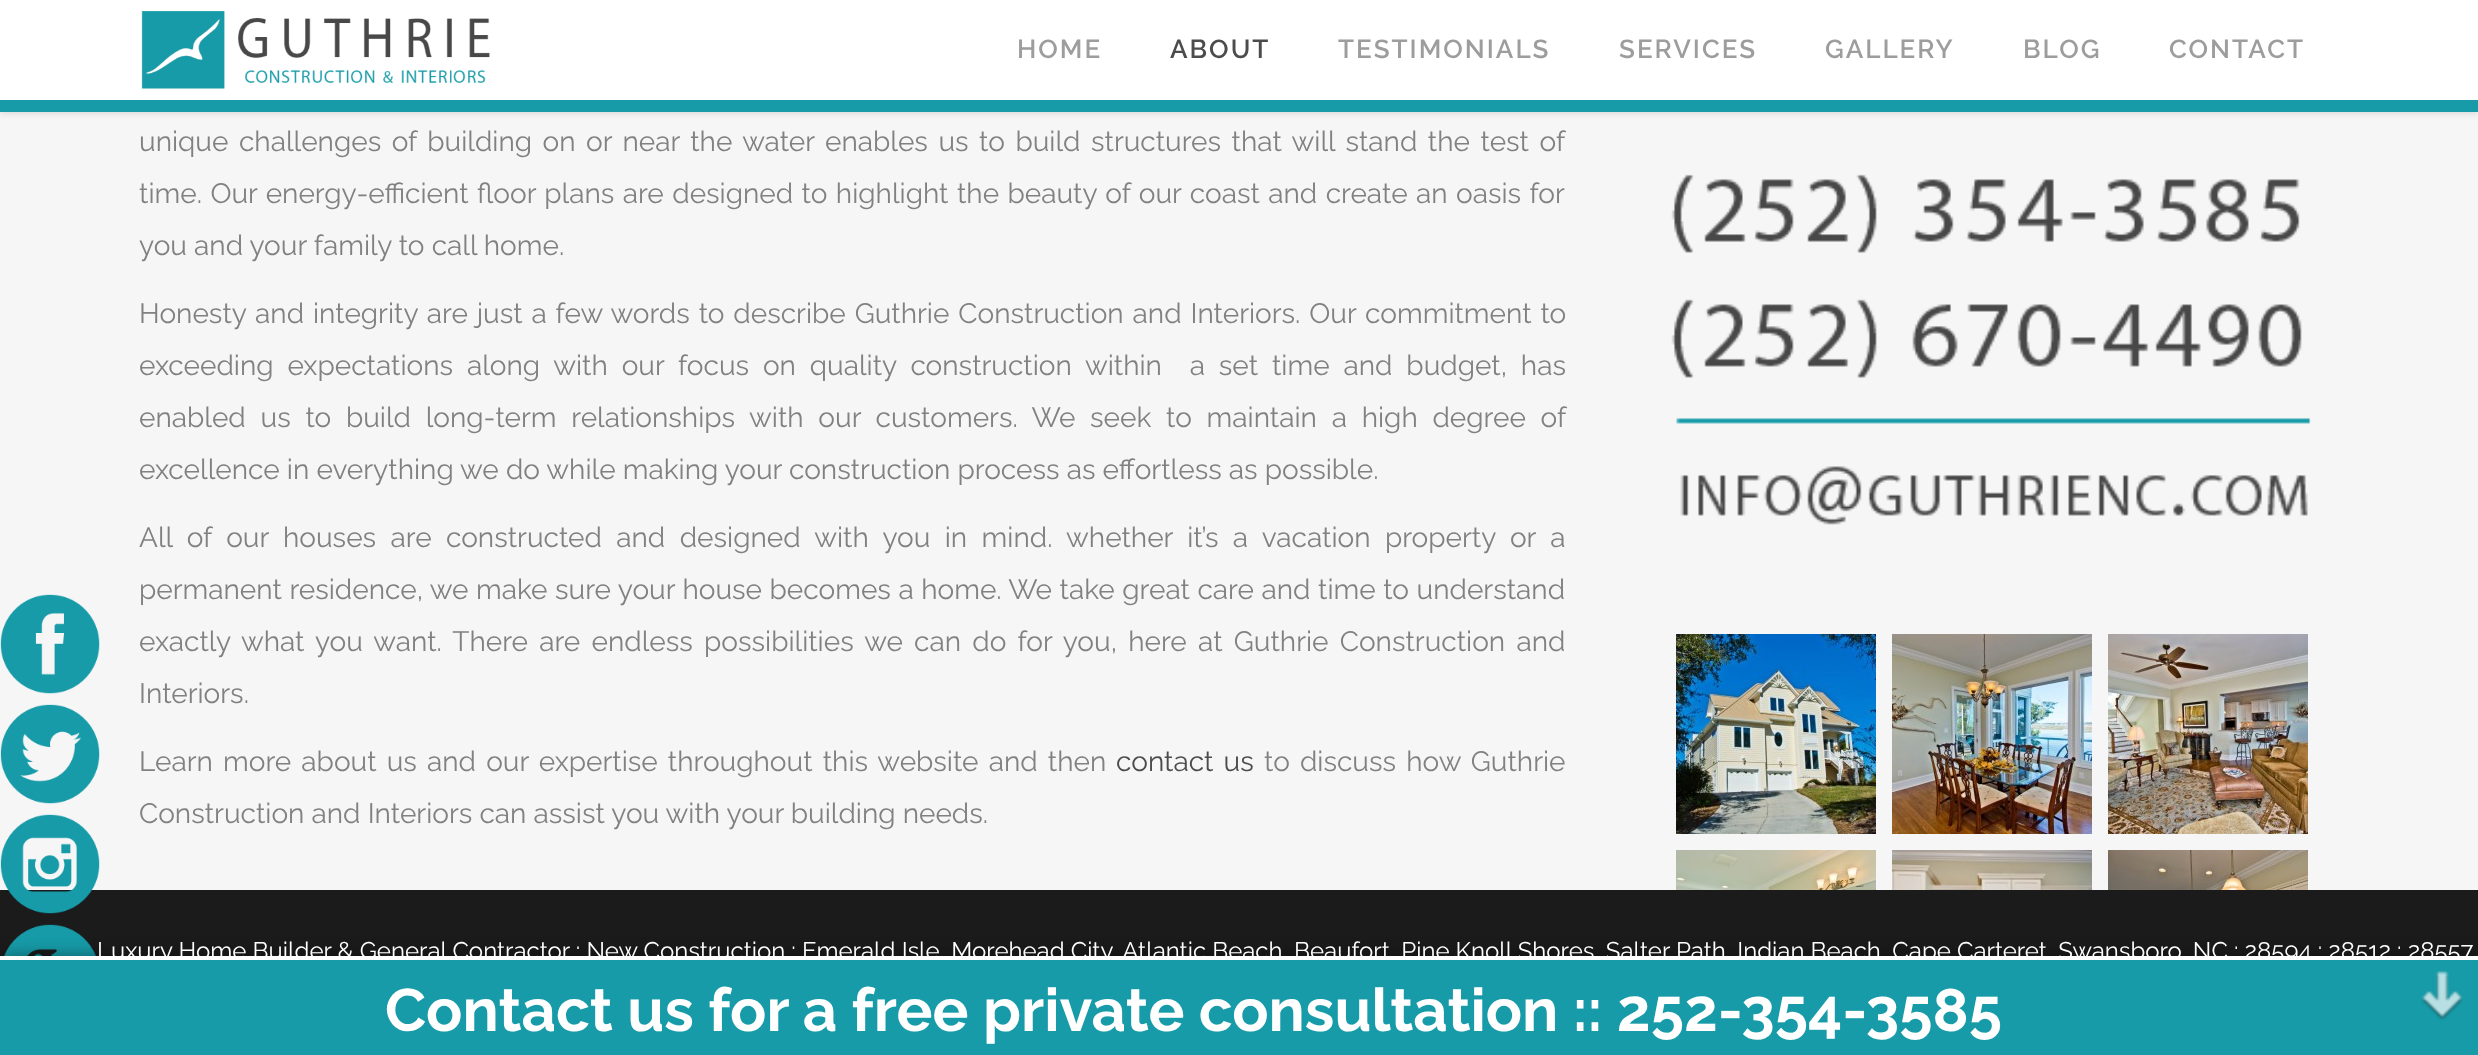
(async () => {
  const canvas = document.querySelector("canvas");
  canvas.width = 2478;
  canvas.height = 1055;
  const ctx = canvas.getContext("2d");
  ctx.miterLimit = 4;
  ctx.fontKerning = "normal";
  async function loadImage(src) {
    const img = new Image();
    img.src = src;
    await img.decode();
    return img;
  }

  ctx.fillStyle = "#f6f6f6";
  ctx.fillRect(0, 0, 2478, 1055);
  ctx.drawImage(await loadImage("img/1.png"), 0, 594, 100, 100);
  ctx.drawImage(await loadImage("img/2.png"), 0, 704, 100, 100);
  ctx.fillStyle = "#1b1b1b";
  ctx.fillRect(0, 890, 2478, 66);
  ctx.drawImage(await loadImage("img/3.png"), 0, 814, 100, 100);
  ctx.drawImage(await loadImage("img/4.png"), 4, 924, 92, 32);
  ctx.fillStyle = "rgba(0, 0, 0, 0.11)";
  ctx.filter = "blur(3px)";
  ctx.beginPath();
  ctx.rect(0, 2, 2478, 112);
  ctx.fill();
  ctx.filter = "none";
  ctx.fillStyle = "#ffffff";
  ctx.fillRect(0, 0, 2478, 100);
  ctx.fillStyle = "#179ba8";
  ctx.fillRect(0, 100, 2478, 12);
  ctx.drawImage(await loadImage("img/5.png"), 141, 11, 349, 79);
  ctx.drawImage(await loadImage("img/6.png"), 1671, 174, 640, 351);
  ctx.drawImage(await loadImage("img/7.png"), 1676, 634, 200, 200);
  ctx.drawImage(await loadImage("img/8.png"), 1892, 634, 200, 200);
  ctx.drawImage(await loadImage("img/9.png"), 2108, 634, 200, 200);
  ctx.drawImage(await loadImage("img/10.png"), 1676, 850, 200, 40);
  ctx.drawImage(await loadImage("img/11.png"), 1892, 850, 200, 40);
  ctx.drawImage(await loadImage("img/12.png"), 2108, 850, 200, 40);
  ctx.fillStyle = "rgba(0, 0, 0, 0.4)";
  ctx.filter = "blur(8.5px)";
  ctx.beginPath();
  ctx.rect(0, 956, 2478, 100);
  ctx.fill();
  ctx.filter = "none";
  ctx.fillStyle = "#ffffff";
  ctx.fillRect(0, 956, 2478, 4);
  ctx.letterSpacing = "2px";
  ctx.font = "600 26px Raleway";
  ctx.fillStyle = "#9d9d9d";
  ctx.fillText("HOME", 1017, 58);
  ctx.fillStyle = "#4c4c4c";
  ctx.fillText("ABOUT", 1170, 58);
  ctx.fillStyle = "#9d9d9d";
  for (const [text, x, y] of [
    ["TESTIMONIALS", 1338, 58],
    ["SERVICES", 1619, 58],
    ["GALLERY", 1825, 58],
    ["BLOG", 2023, 58],
    ["CONTACT", 2169, 58],
  ]) {
    ctx.fillText(text, x, y);
  }
  ctx.letterSpacing = "0px";
  ctx.wordSpacing = "3.4px";
  ctx.font = "28px Raleway";
  ctx.fillStyle = "#818181";
  ctx.fillText("unique challenges of building on or near the water enables us to build structures that will stand the test of", 139, 151);
  ctx.wordSpacing = "1.3px";
  ctx.fillText("time. Our energy-efficient floor plans are designed to highlight the beauty of our coast and create an oasis for", 139, 203);
  ctx.wordSpacing = "0px";
  ctx.fillText("you and your family to call home.", 139, 255);
  ctx.wordSpacing = "1.75px";
  ctx.fillText("Honesty and integrity are just a few words to describe Guthrie Construction and Interiors. Our commitment to", 139, 323);
  ctx.wordSpacing = "6.75px";
  ctx.fillText("exceeding expectations along with our focus on quality construction within  a set time and budget, has", 139, 375);
  ctx.wordSpacing = "7.6px";
  ctx.fillText("enabled us to build long-term relationships with our customers. We seek to maintain a high degree of", 139, 427);
  ctx.wordSpacing = "0px";
  ctx.fillText("excellence in everything we do while making your construction process as effortless as possible.", 139, 479);
  ctx.wordSpacing = "7.25px";
  ctx.fillText("All of our houses are constructed and designed with you in mind. whether it’s a vacation property or a", 139, 547);
  ctx.wordSpacing = "0.4px";
  ctx.fillText("permanent residence, we make sure your house becomes a home. We take great care and time to understand", 139, 599);
  ctx.wordSpacing = "4.1px";
  ctx.fillText("exactly what you want. There are endless possibilities we can do for you, here at Guthrie Construction and", 139, 651);
  ctx.wordSpacing = "0px";
  ctx.fillText("Interiors.", 139, 703);
  ctx.wordSpacing = "3px";
  ctx.fillText("Learn more about us and our expertise throughout this website and then", 139, 771);
  ctx.fillStyle = "#4c4c4c";
  ctx.fillText("contact us", 1116, 771);
  ctx.fillStyle = "#818181";
  ctx.fillText("to discuss how Guthrie", 1264, 771);
  ctx.wordSpacing = "0px";
  ctx.fillText("Construction and Interiors can assist you with your building needs.", 139, 823);
  ctx.font = "24px Raleway";
  ctx.fillStyle = "#ffffff";
  ctx.fillText("Luxury Home Builder & General Contractor : New Construction : Emerald Isle, Morehead City, Atlantic Beach, Beaufort, Pine Knoll Shores, Salter Path, Indian Beach, Cape Carteret, Swansboro, NC : 28594 : 28512 : 28557", 97, 959);
  ctx.fillStyle = "#179ba8";
  ctx.fillRect(0, 960, 2478, 95);
  ctx.font = "bold 60px Raleway";
  ctx.fillStyle = "#ffffff";
  ctx.fillText("Contact us for a free private consultation :: 252-354-3585", 385, 1031);
  ctx.drawImage(await loadImage("img/13.png"), 2421, 970, 42, 50);
})();
